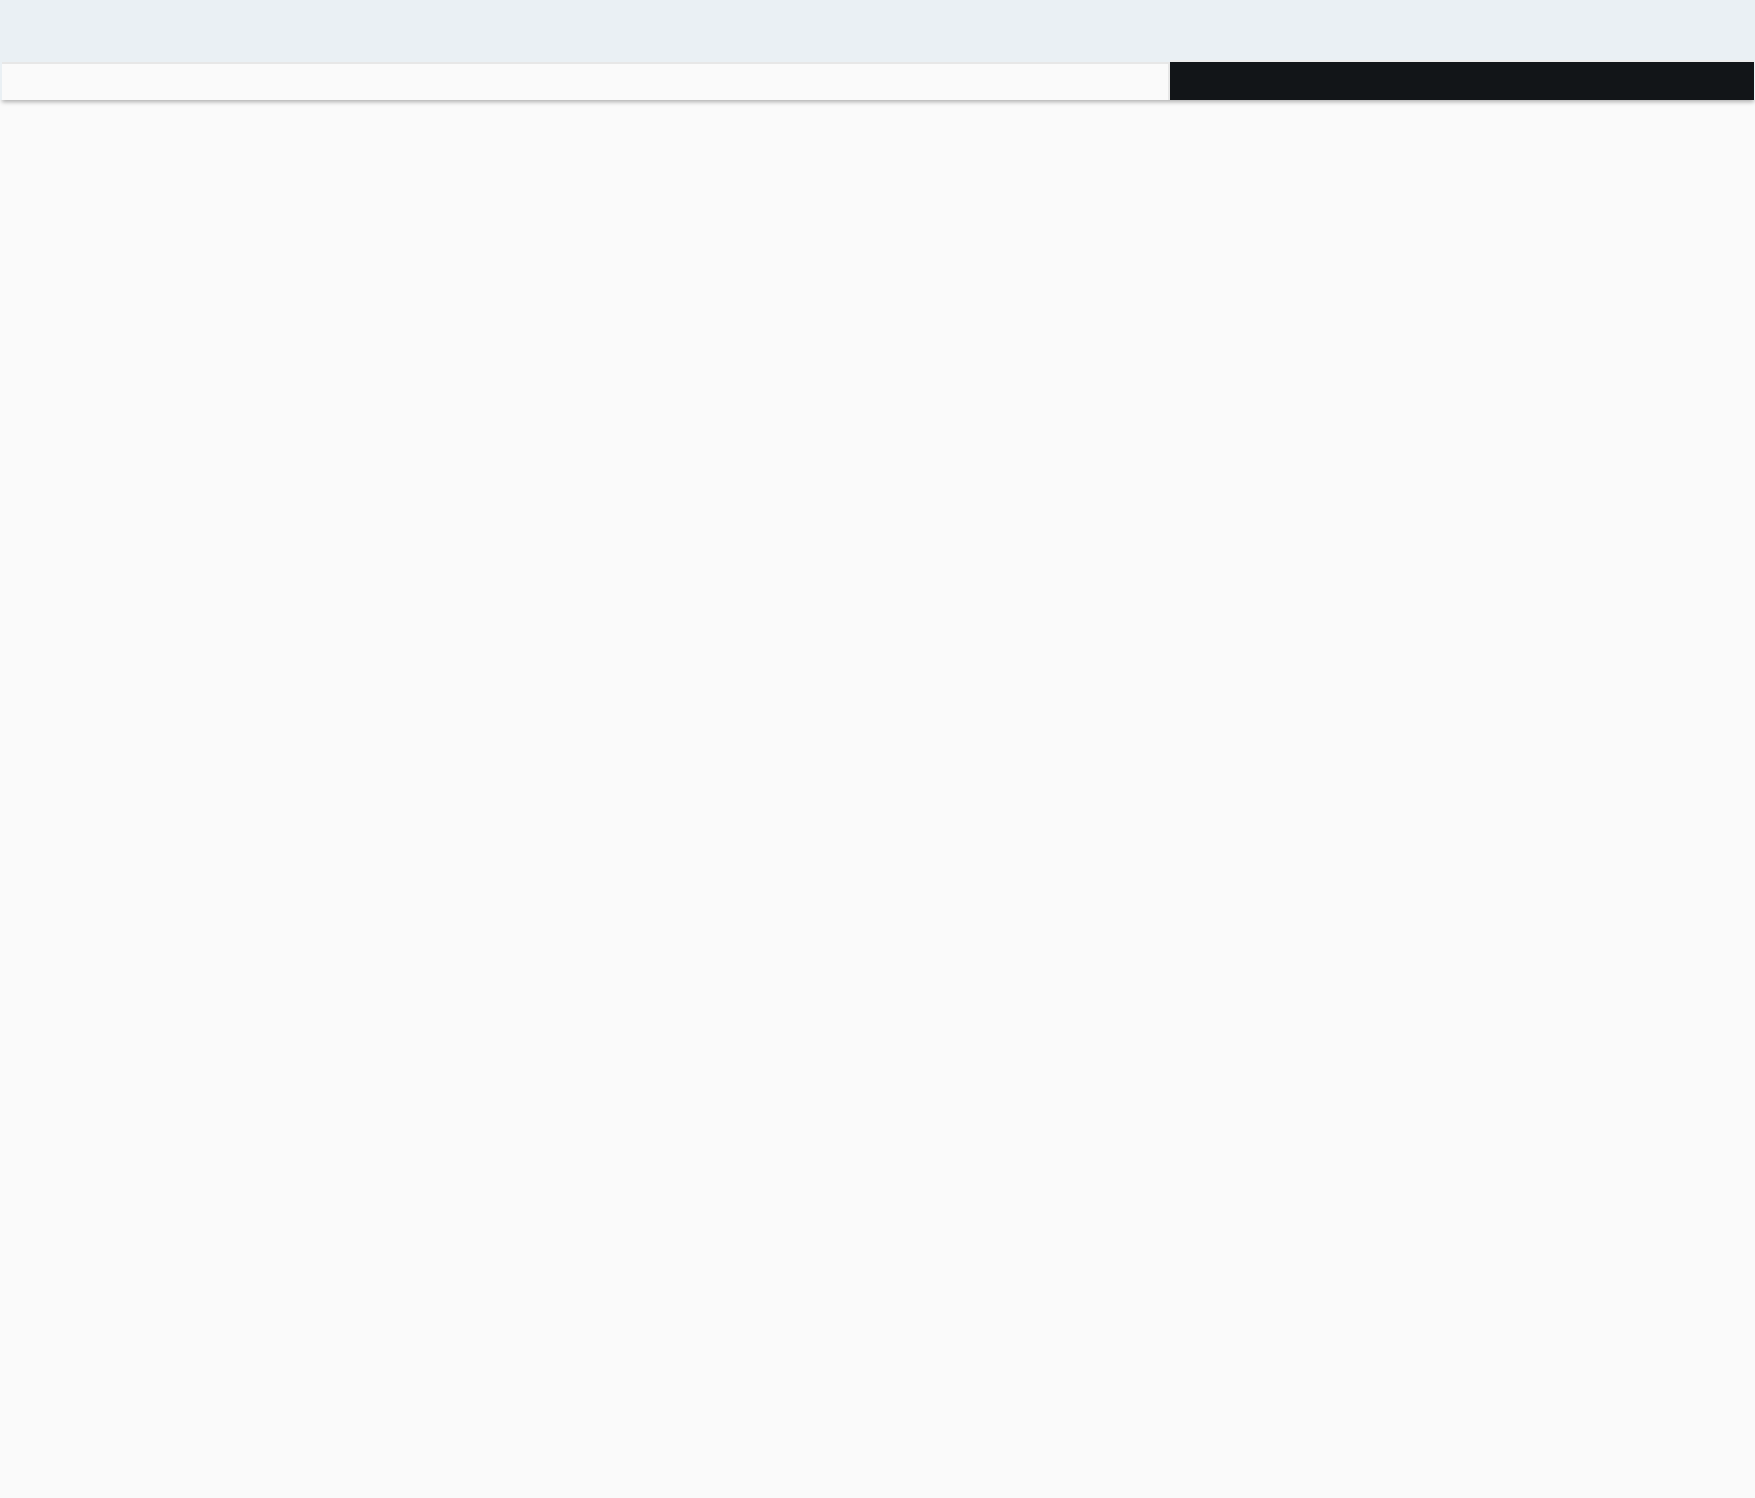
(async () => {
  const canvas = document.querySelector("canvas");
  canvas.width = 1755;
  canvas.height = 1498;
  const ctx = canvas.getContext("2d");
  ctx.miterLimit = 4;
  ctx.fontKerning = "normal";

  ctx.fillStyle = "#fafafa";
  ctx.fillRect(0, 0, 1755, 1498);
  ctx.fillStyle = "rgba(0, 0, 0, 0.3)";
  ctx.filter = "blur(2px)";
  ctx.beginPath();
  ctx.rect(2, 6, 1752, 96);
  ctx.fill();
  ctx.filter = "none";
  ctx.save();
  ctx.beginPath();
  ctx.rect(0, 0, 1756, 100);
  ctx.clip();
  ctx.strokeStyle = "#eaf0f4";
  ctx.lineWidth = 2;
  ctx.strokeRect(1, 1, 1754, 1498);
  ctx.restore();
  for (const [x, y, w, h, color] of [
    [2, 2, 1752, 60, "#eaf0f4"],
    [1168, 62, 2, 38, "#e7e7e7"],
    [2, 64, 1166, 36, "#fafafa"],
    [2, 62, 1166, 2, "#e7e7e7"],
    [1170, 62, 584, 38, "#121518"],
    [1170, 60, 584, 2, "#ececec"],
  ]) {
    ctx.fillStyle = color;
    ctx.fillRect(x, y, w, h);
  }
})();
